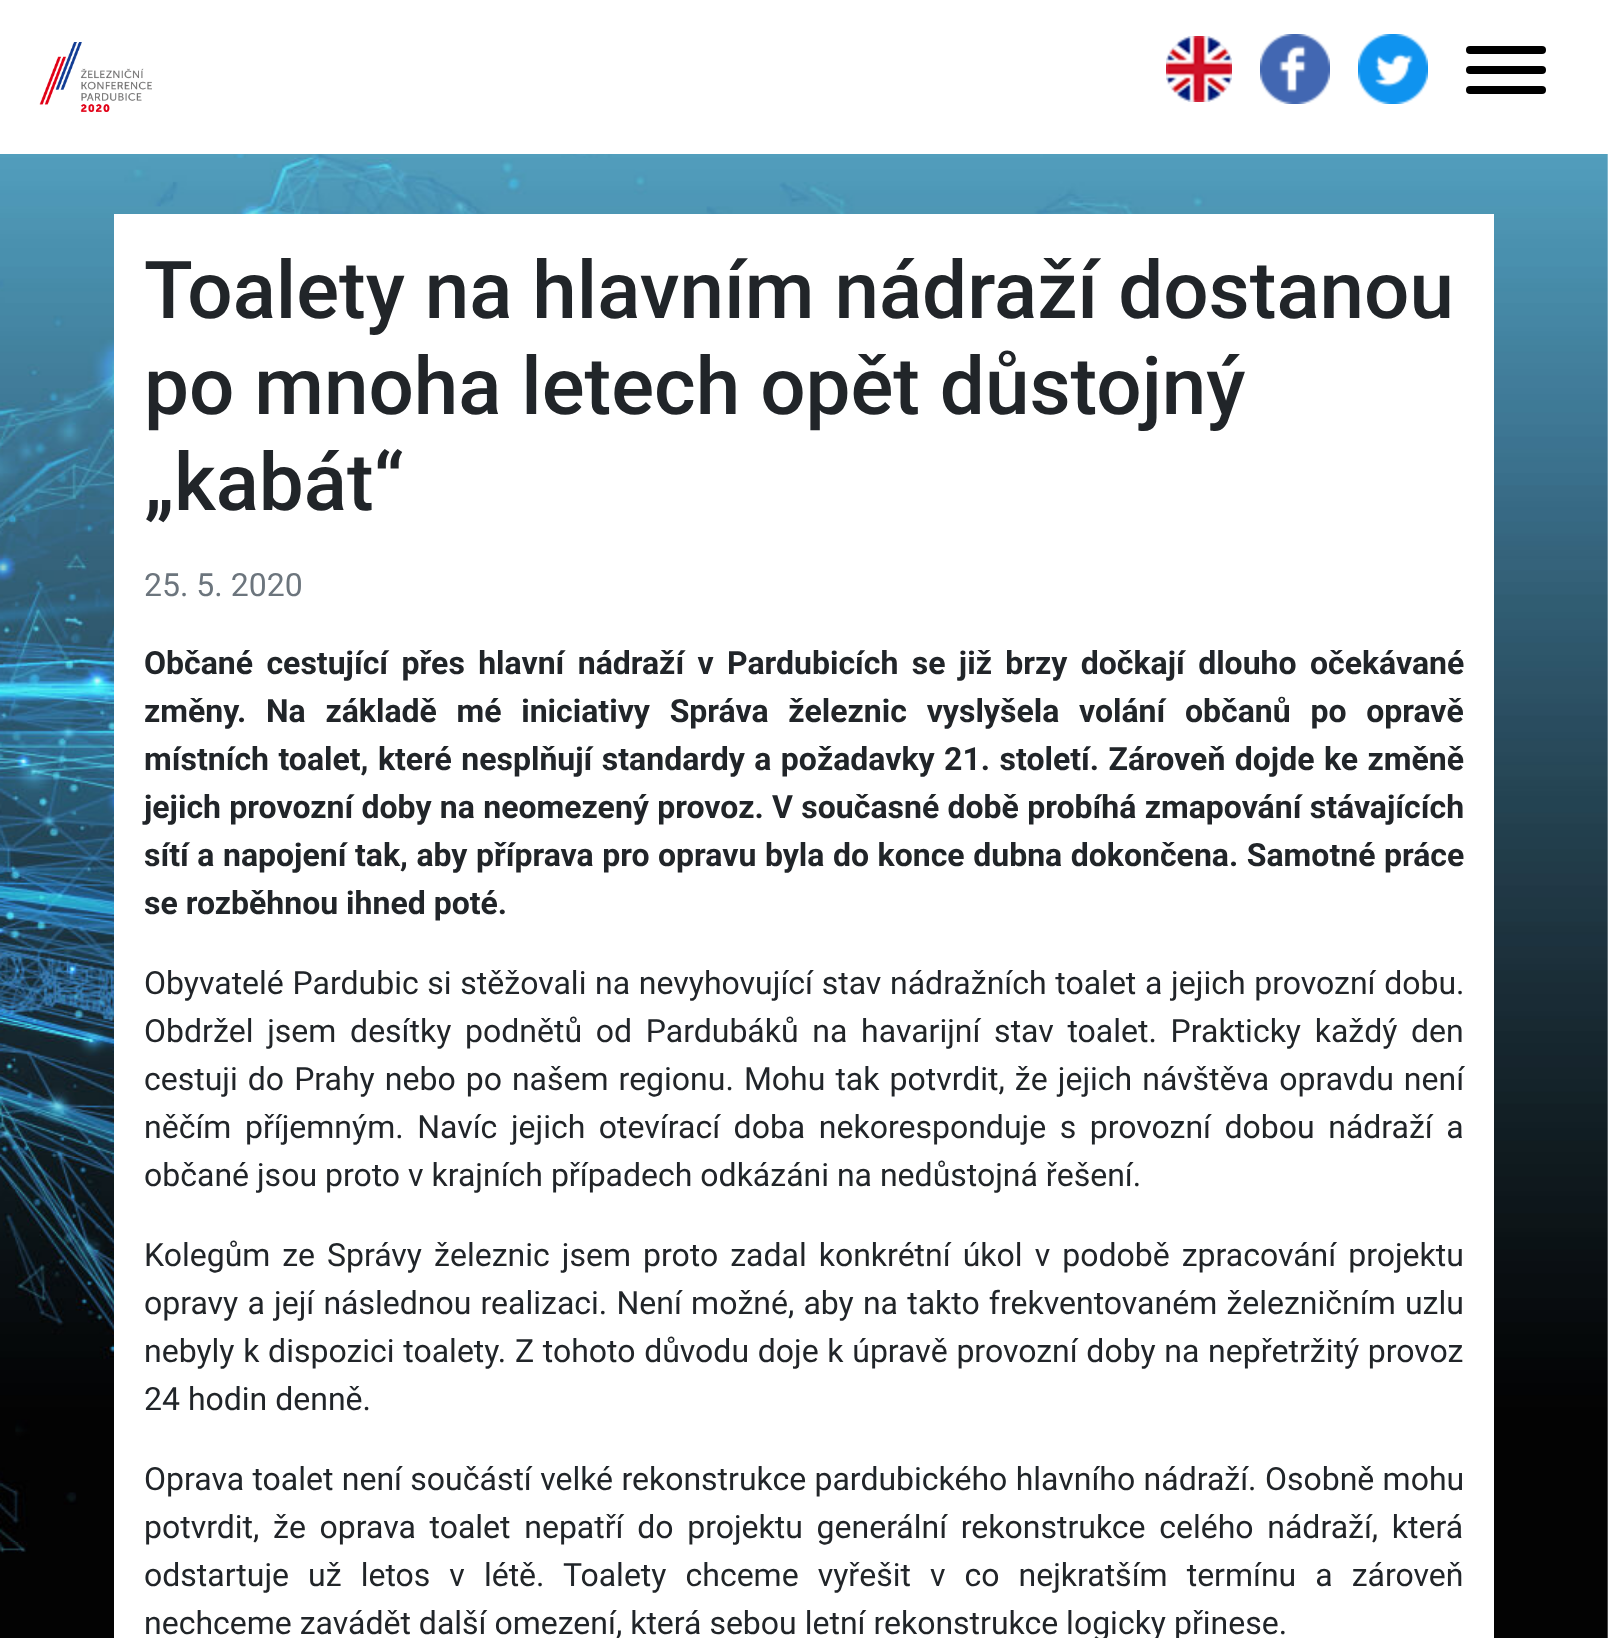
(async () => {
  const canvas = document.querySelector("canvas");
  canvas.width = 1608;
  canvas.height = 1638;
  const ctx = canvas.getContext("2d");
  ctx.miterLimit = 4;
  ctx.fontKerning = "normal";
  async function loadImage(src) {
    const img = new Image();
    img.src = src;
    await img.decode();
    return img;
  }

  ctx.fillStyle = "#ffffff";
  ctx.fillRect(0, 0, 1608, 1638);
  ctx.drawImage(await loadImage("img/1.png"), 0, 154, 1608, 1484);
  ctx.drawImage(await loadImage("img/2.png"), 39, 42, 113, 70);
  ctx.drawImage(await loadImage("img/3.png"), 1166, 36, 66, 66);
  ctx.drawImage(await loadImage("img/4.png"), 1260, 34, 70, 70);
  ctx.drawImage(await loadImage("img/5.png"), 1358, 34, 70, 70);
  ctx.fillStyle = "#000000";
  ctx.beginPath();
  ctx.roundRect(1466, 66, 80, 8, 4);
  ctx.fill();
  ctx.beginPath();
  ctx.roundRect(1466, 46, 80, 8, 4);
  ctx.fill();
  ctx.beginPath();
  ctx.roundRect(1466, 86, 80, 8, 4);
  ctx.fill();
  ctx.fillStyle = "#ffffff";
  ctx.fillRect(114, 214, 1380, 1424);
  ctx.font = "500 80px Roboto";
  ctx.fillStyle = "#212529";
  for (const [text, x, y] of [
    ["Toalety na hlavním nádraží dostanou", 144, 318],
    ["po mnoha letech opět důstojný", 144, 414],
    ["„kabát“", 144, 510],
  ]) {
    ctx.fillText(text, x, y);
  }
  ctx.font = "32px Roboto";
  ctx.fillStyle = "#6c757d";
  ctx.fillText("25. 5. 2020", 144, 596);
  ctx.wordSpacing = "5.4px";
  ctx.font = "bold 32px Roboto";
  ctx.fillStyle = "#212529";
  ctx.fillText("Občané cestující přes hlavní nádraží v Pardubicích se již brzy dočkají dlouho očekávané", 144, 674);
  ctx.wordSpacing = "11.75px";
  ctx.fillText("změny. Na základě mé iniciativy Správa železnic vyslyšela volání občanů po opravě", 144, 722);
  ctx.wordSpacing = "1.5px";
  ctx.fillText("místních toalet, které nesplňují standardy a požadavky 21. století. Zároveň dojde ke změně", 144, 770);
  ctx.wordSpacing = "0.4px";
  ctx.fillText("jejich provozní doby na neomezený provoz. V současné době probíhá zmapování stávajících", 144, 818);
  ctx.wordSpacing = "0.6px";
  ctx.fillText("sítí a napojení tak, aby příprava pro opravu byla do konce dubna dokončena. Samotné práce", 144, 866);
  ctx.wordSpacing = "0px";
  ctx.fillText("se rozběhnou ihned poté.", 144, 914);
  ctx.wordSpacing = "0.75px";
  ctx.font = "32px Roboto";
  ctx.fillText("Obyvatelé Pardubic si stěžovali na nevyhovující stav nádražních toalet a jejich provozní dobu.", 144, 994);
  ctx.wordSpacing = "5.75px";
  ctx.fillText("Obdržel jsem desítky podnětů od Pardubáků na havarijní stav toalet. Prakticky každý den", 144, 1042);
  ctx.wordSpacing = "2.1px";
  ctx.fillText("cestuji do Prahy nebo po našem regionu. Mohu tak potvrdit, že jejich návštěva opravdu není", 144, 1090);
  ctx.wordSpacing = "5.6px";
  ctx.fillText("něčím příjemným. Navíc jejich otevírací doba nekoresponduje s provozní dobou nádraží a", 144, 1138);
  ctx.wordSpacing = "0px";
  ctx.fillText("občané jsou proto v krajních případech odkázáni na nedůstojná řešení.", 144, 1186);
  ctx.wordSpacing = "4.1px";
  ctx.fillText("Kolegům ze Správy železnic jsem proto zadal konkrétní úkol v podobě zpracování projektu", 144, 1266);
  ctx.wordSpacing = "1.25px";
  ctx.fillText("opravy a její následnou realizaci. Není možné, aby na takto frekventovaném železničním uzlu", 144, 1314);
  ctx.wordSpacing = "0.75px";
  ctx.fillText("nebyly k dispozici toalety. Z tohoto důvodu doje k úpravě provozní doby na nepřetržitý provoz", 144, 1362);
  ctx.wordSpacing = "0px";
  ctx.fillText("24 hodin denně.", 144, 1410);
  ctx.wordSpacing = "0.4px";
  ctx.fillText("Oprava toalet není součástí velké rekonstrukce pardubického hlavního nádraží. Osobně mohu", 144, 1490);
  ctx.wordSpacing = "5.75px";
  ctx.fillText("potvrdit, že oprava toalet nepatří do projektu generální rekonstrukce celého nádraží, která", 144, 1538);
  ctx.wordSpacing = "11.1px";
  ctx.fillText("odstartuje už letos v létě. Toalety chceme vyřešit v co nejkratším termínu a zároveň", 144, 1586);
  ctx.wordSpacing = "0px";
  ctx.fillText("nechceme zavádět další omezení, která sebou letní rekonstrukce logicky přinese.", 144, 1634);
})();
